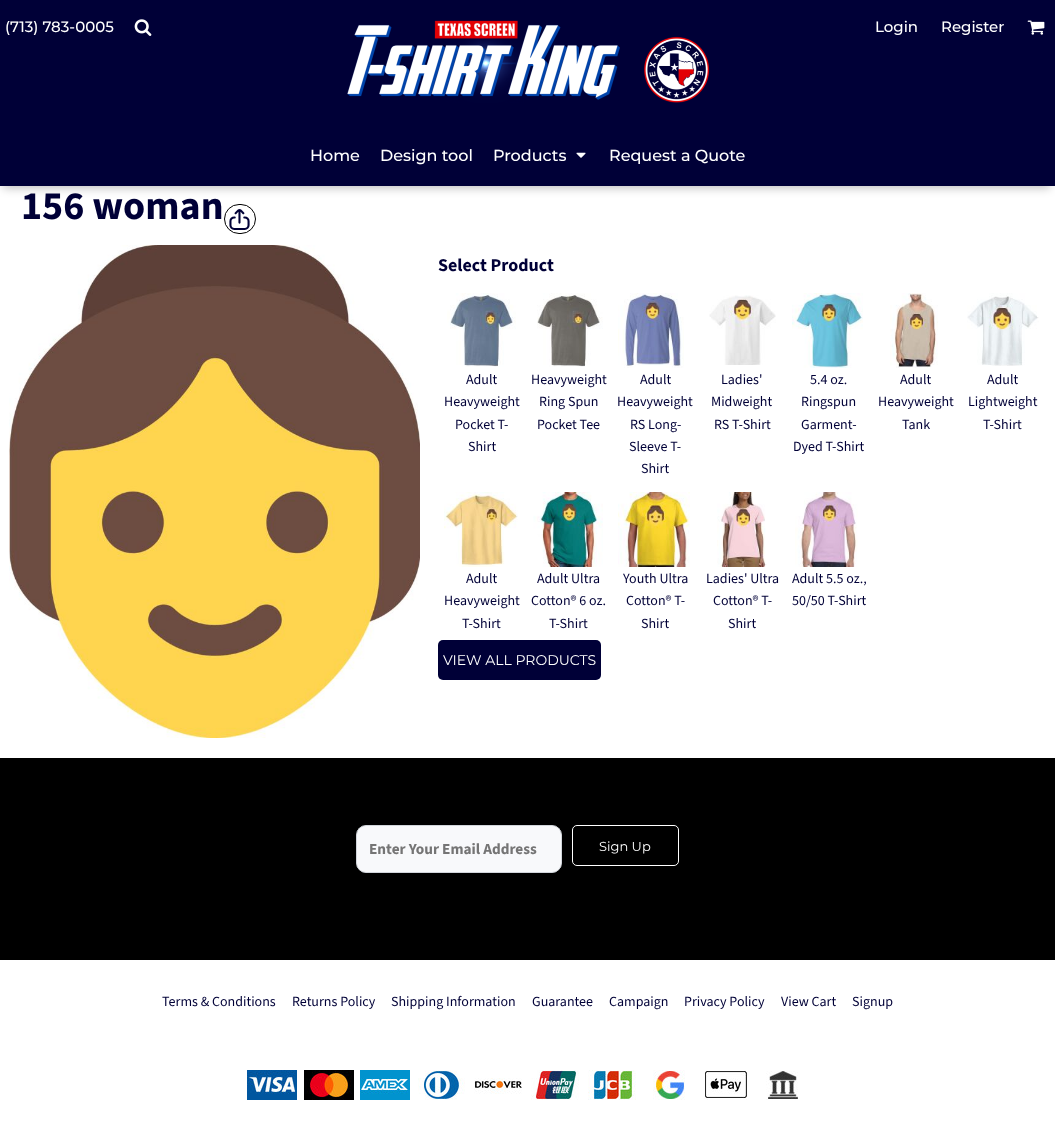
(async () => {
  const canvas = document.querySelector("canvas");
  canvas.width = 1055;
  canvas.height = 1126;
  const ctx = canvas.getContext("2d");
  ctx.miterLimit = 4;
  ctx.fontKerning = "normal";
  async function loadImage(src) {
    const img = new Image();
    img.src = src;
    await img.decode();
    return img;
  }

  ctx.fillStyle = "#ffffff";
  ctx.fillRect(0, 0, 1055, 1126);
  ctx.fillStyle = "rgba(0, 0, 0, 0.25)";
  ctx.filter = "blur(5px)";
  ctx.beginPath();
  ctx.rect(3, 10, 1047, 178);
  ctx.fill();
  ctx.filter = "none";
  ctx.fillStyle = "#000037";
  ctx.fillRect(0, 0, 1055, 186);
  ctx.drawImage(await loadImage("img/1.png"), 134, 19, 18, 17);
  ctx.drawImage(await loadImage("img/2.png"), 347, 20, 363, 83);
  ctx.drawImage(await loadImage("img/3.png"), 1027, 20, 18, 15);
  ctx.drawImage(await loadImage("img/4.png"), 576, 152, 10, 6);
  ctx.beginPath();
  ctx.roundRect(224.5, 204.5, 31, 29, 14.5);
  ctx.strokeStyle = "#000000";
  ctx.stroke();
  ctx.drawImage(await loadImage("img/5.png"), 9, 245, 411, 493);
  ctx.drawImage(await loadImage("img/6.png"), 447, 293, 69, 74);
  ctx.drawImage(await loadImage("img/7.png"), 537, 293, 66, 74);
  ctx.drawImage(await loadImage("img/8.png"), 618, 293, 66, 75);
  ctx.drawImage(await loadImage("img/9.png"), 709, 295, 67, 70);
  ctx.drawImage(await loadImage("img/10.png"), 792, 293, 71, 75);
  ctx.drawImage(await loadImage("img/11.png"), 890, 293, 48, 75);
  ctx.drawImage(await loadImage("img/12.png"), 967, 293, 72, 73);
  ctx.drawImage(await loadImage("img/13.png"), 444, 492, 74, 75);
  ctx.drawImage(await loadImage("img/14.png"), 533, 492, 70, 75);
  ctx.drawImage(await loadImage("img/15.png"), 618, 492, 72, 75);
  ctx.drawImage(await loadImage("img/16.png"), 717, 492, 50, 75);
  ctx.drawImage(await loadImage("img/17.png"), 795, 492, 63, 75);
  ctx.beginPath();
  ctx.roundRect(438, 640, 163, 40, 5);
  ctx.fill();
  ctx.fillStyle = "#000000";
  ctx.fillRect(0, 758, 1055, 202);
  ctx.fillStyle = "#f8f9fb";
  ctx.beginPath();
  ctx.roundRect(356.5, 825.5, 205, 47, 9.5);
  ctx.fill();
  ctx.strokeStyle = "#d1d5db";
  ctx.stroke();
  ctx.beginPath();
  ctx.roundRect(572.5, 825.5, 106, 40, 4.5);
  ctx.strokeStyle = "#ffffff";
  ctx.stroke();
  ctx.drawImage(await loadImage("img/18.png"), 247, 1070, 50, 30);
  ctx.drawImage(await loadImage("img/19.png"), 304, 1070, 50, 30);
  ctx.drawImage(await loadImage("img/20.png"), 360, 1070, 50, 30);
  ctx.drawImage(await loadImage("img/21.png"), 418, 1070, 47, 30);
  ctx.drawImage(await loadImage("img/22.png"), 474, 1078, 48, 16);
  ctx.drawImage(await loadImage("img/23.png"), 531, 1070, 48, 30);
  ctx.drawImage(await loadImage("img/24.png"), 588, 1070, 48, 30);
  ctx.drawImage(await loadImage("img/25.png"), 653, 1070, 32, 30);
  ctx.drawImage(await loadImage("img/26.png"), 704, 1071, 44, 29);
  ctx.drawImage(await loadImage("img/27.png"), 766, 1071, 32, 29);
  ctx.font = "500 15px Montserrat";
  ctx.fillStyle = "#ffffff";
  for (const [text, x, y] of [
    ["(713) 783-0005", 5, 32],
    ["Login", 875, 32],
    ["Register", 941, 32],
  ]) {
    ctx.fillText(text, x, y);
  }
  ctx.font = "500 16px Montserrat";
  for (const [text, x, y] of [
    ["Home", 310, 161],
    ["Design tool", 380, 161],
    ["Products", 493, 161],
    ["Request a Quote", 609, 161],
  ]) {
    ctx.fillText(text, x, y);
  }
  ctx.font = "bold 40px 'Source Sans 3'";
  ctx.fillStyle = "#000037";
  ctx.fillText("156 woman", 21, 219);
  ctx.font = "23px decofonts";
  ctx.fillText("/", 228, 231);
  ctx.font = "bold 18px 'Source Sans 3'";
  ctx.fillText("Select Product", 438, 271);
  ctx.font = "14px 'Source Sans 3'";
  for (const [text, x, y] of [
    ["Adult", 466, 384],
    ["Heavyweight", 444, 406],
    ["Pocket T-", 455, 429],
    ["Shirt", 468, 451],
    ["Heavyweight", 531, 384],
    ["Ring Spun", 539, 406],
    ["Pocket Tee", 537, 429],
    ["Adult", 640, 384],
    ["Heavyweight", 617, 406],
    ["RS Long-", 630, 429],
    ["Sleeve T-", 629, 451],
    ["Shirt", 641, 473],
    ["Ladies'", 721, 384],
    ["Midweight", 711, 406],
    ["RS T-Shirt", 714, 429],
    ["5.4 oz.", 810, 384],
    ["Ringspun", 801, 406],
    ["Garment-", 801, 429],
    ["Dyed T-Shirt", 793, 451],
    ["Adult", 900, 384],
    ["Heavyweight", 878, 406],
    ["Tank", 902, 429],
    ["Adult", 987, 384],
    ["Lightweight", 968, 406],
    ["T-Shirt", 983, 429],
    ["Adult", 466, 583],
    ["Heavyweight", 444, 605],
    ["T-Shirt", 462, 628],
    ["Adult Ultra", 537, 583],
    ["Cotton® 6 oz.", 531, 605],
    ["T-Shirt", 549, 628],
    ["Youth Ultra", 623, 583],
    ["Cotton® T-", 626, 605],
    ["Shirt", 641, 628],
    ["Ladies' Ultra", 706, 583],
    ["Cotton® T-", 713, 605],
    ["Shirt", 728, 628],
    ["Adult 5.5 oz.,", 792, 583],
    ["50/50 T-Shirt", 792, 605],
  ]) {
    ctx.fillText(text, x, y);
  }
  ctx.font = "14px Montserrat";
  ctx.fillStyle = "#ffffff";
  ctx.fillText("VIEW ALL PRODUCTS", 443, 665);
  ctx.font = "bold 15.25px 'Source Sans 3'";
  ctx.fillStyle = "#757575";
  ctx.fillText("Enter Your Email Address", 369, 854);
  ctx.font = "13px Montserrat";
  ctx.fillStyle = "#ffffff";
  ctx.fillText("Sign Up", 599, 851);
  ctx.font = "14px 'Source Sans 3'";
  ctx.fillStyle = "#000037";
  for (const [text, x, y] of [
    ["Terms & Conditions", 162, 1006],
    ["Returns Policy", 292, 1006],
    ["Shipping Information", 391, 1006],
    ["Guarantee", 532, 1006],
    ["Campaign", 609, 1006],
    ["Privacy Policy", 684, 1006],
    ["View Cart", 781, 1006],
    ["Signup", 852, 1006],
  ]) {
    ctx.fillText(text, x, y);
  }
})();
